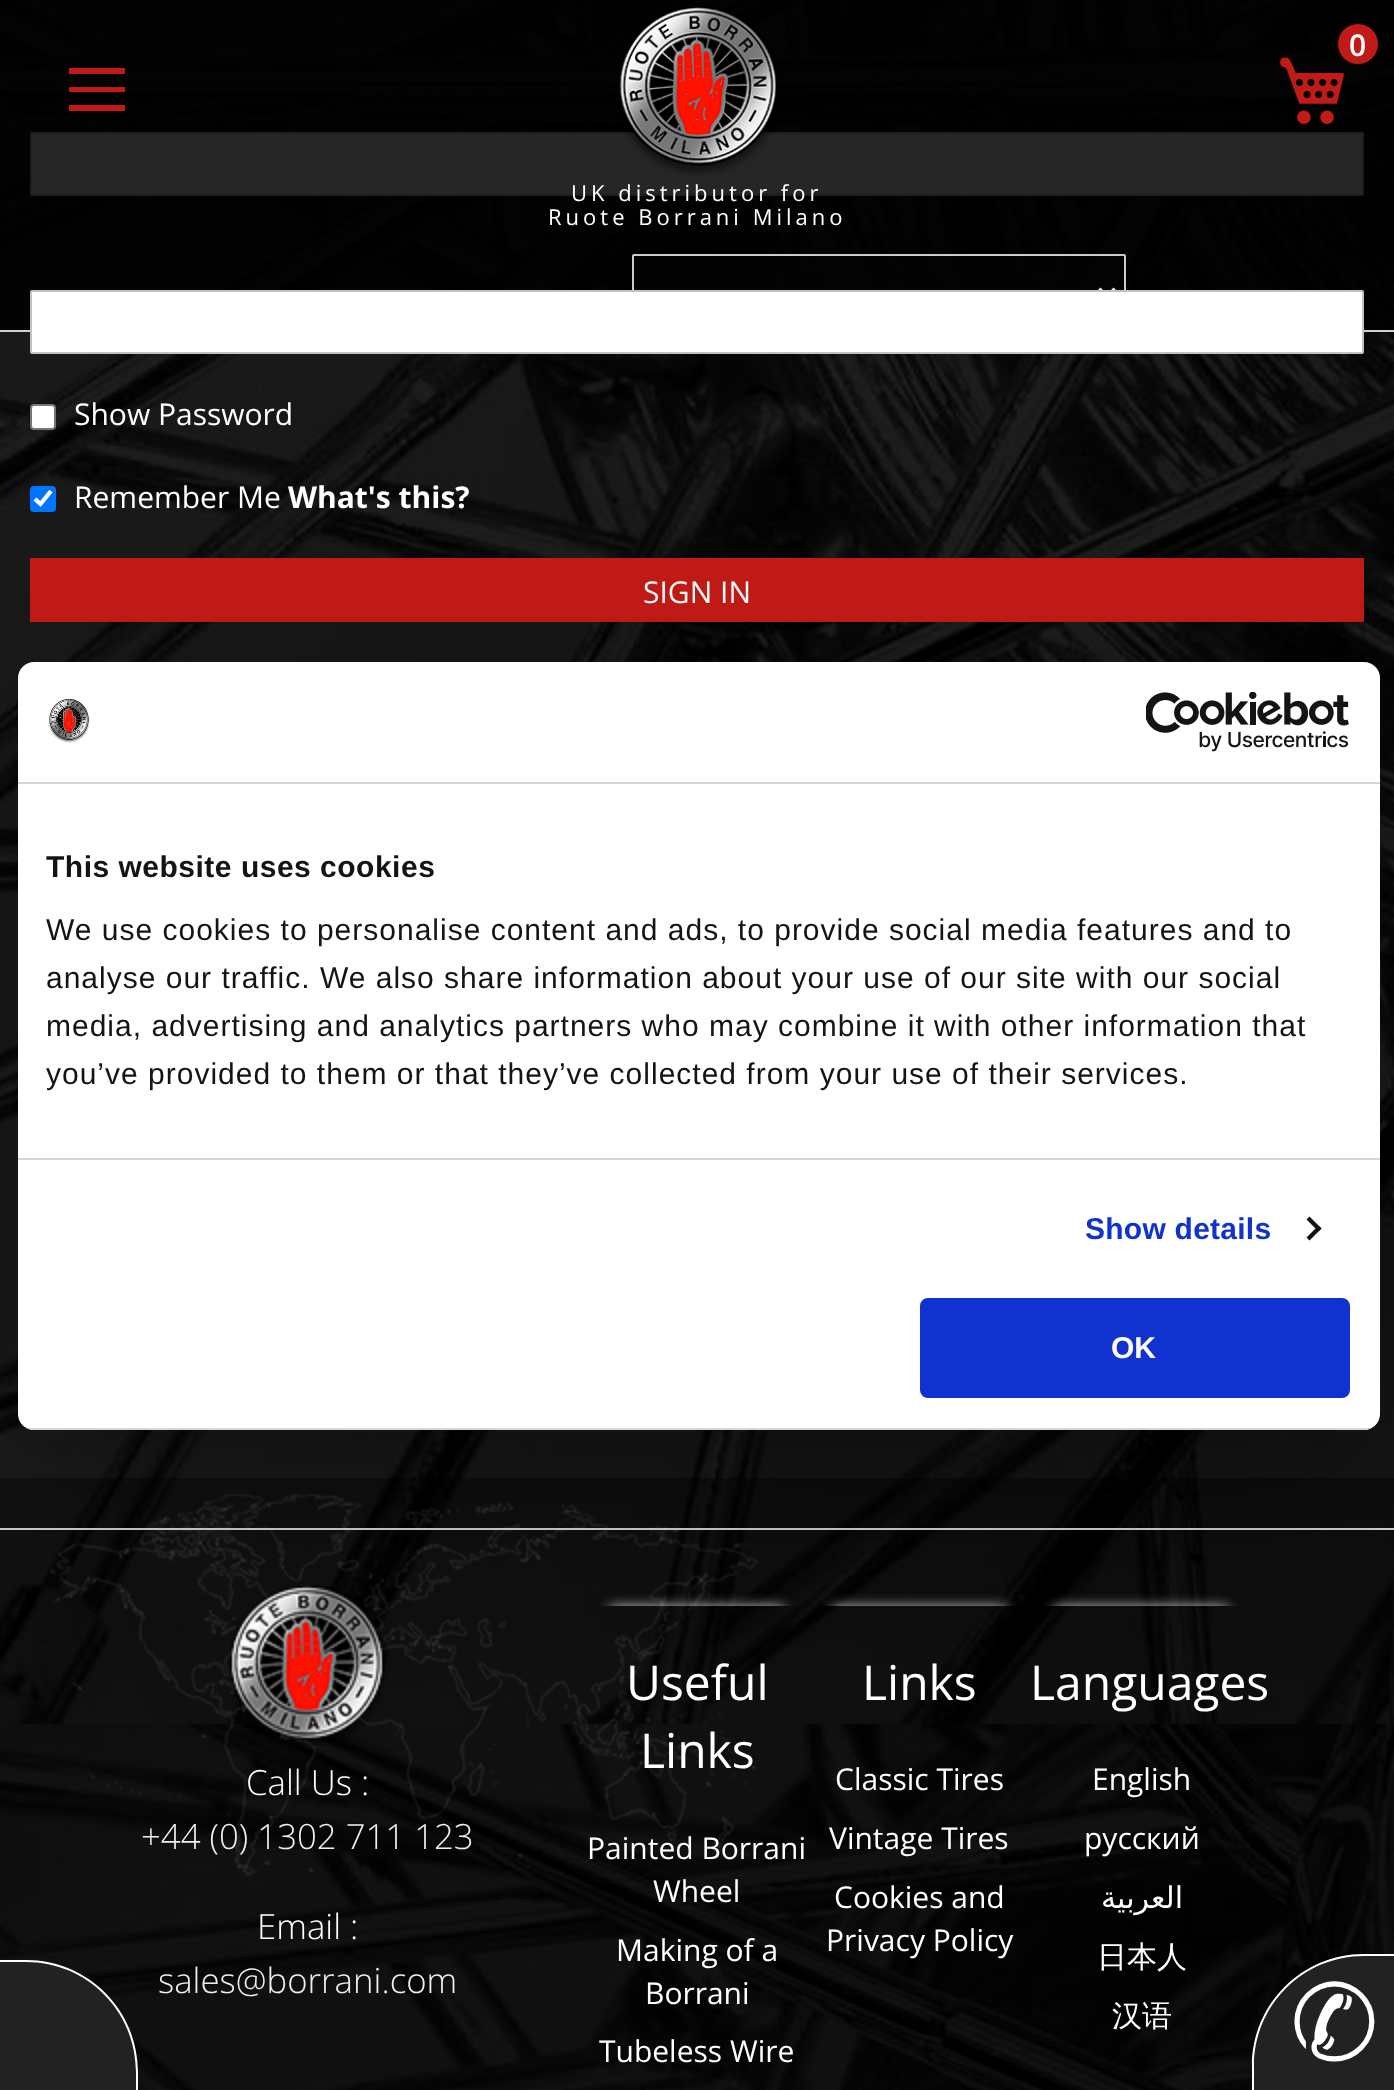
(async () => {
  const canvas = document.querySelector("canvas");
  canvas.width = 1394;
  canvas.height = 2090;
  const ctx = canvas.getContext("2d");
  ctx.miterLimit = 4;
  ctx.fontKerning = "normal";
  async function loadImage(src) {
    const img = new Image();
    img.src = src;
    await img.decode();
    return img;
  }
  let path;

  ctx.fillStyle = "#ffffff";
  ctx.fillRect(0, 0, 1394, 2090);
  ctx.drawImage(await loadImage("img/1.png"), 0, 0, 1394, 2090);
  ctx.beginPath();
  ctx.roundRect(31, 133, 1332, 62, 1);
  ctx.fill();
  ctx.strokeStyle = "#c2c2c2";
  ctx.lineWidth = 2;
  ctx.stroke();
  ctx.fillStyle = "rgba(0, 0, 0, 0.85)";
  ctx.fillRect(0, 0, 1394, 330);
  ctx.fillStyle = "#d1d1d1";
  ctx.fillRect(0, 330, 1394, 2);
  ctx.fillStyle = "rgba(6, 6, 6, 0.51)";
  ctx.beginPath();
  ctx.roundRect(633, 255, 492, 78, 1);
  ctx.fill();
  ctx.strokeStyle = "#cccccc";
  ctx.stroke();
  path = new Path2D("M1099 289L1107 297L1115 289");
  ctx.strokeStyle = "#ffffff";
  ctx.lineWidth = 4;
  ctx.stroke(path);
  ctx.fillStyle = "#ffffff";
  ctx.beginPath();
  ctx.roundRect(31, 291, 1332, 62, 1);
  ctx.fill();
  ctx.strokeStyle = "#c2c2c2";
  ctx.lineWidth = 2;
  ctx.stroke();
  ctx.beginPath();
  ctx.roundRect(31, 405, 24, 24, 3);
  ctx.fill();
  ctx.strokeStyle = "#767676";
  ctx.stroke();
  ctx.fillStyle = "#0075ff";
  ctx.beginPath();
  ctx.roundRect(30, 486, 26, 26, 4);
  ctx.fill();
  path = new Path2D("M35 499L40.5 504L51 491");
  ctx.strokeStyle = "#ffffff";
  ctx.lineWidth = 4.2;
  ctx.stroke(path);
  ctx.fillStyle = "#c11b17";
  ctx.fillRect(30, 558, 1334, 64);
  ctx.drawImage(await loadImage("img/2.png"), 620, 6, 157, 169);
  ctx.drawImage(await loadImage("img/3.png"), 1280, 57, 64, 67);
  ctx.beginPath();
  ctx.arc(1358, 44, 20, 0, Math.PI * 2);
  ctx.fill();
  path = new Path2D("M69 68V74H125V68ZM69 92H125V87H69ZM69 111H125V105H69Z");
  ctx.fill(path);
  ctx.fillStyle = "rgba(0, 0, 0, 0.38)";
  ctx.fillRect(0, 1478, 1394, 612);
  ctx.fillStyle = "#222222";
  ctx.beginPath();
  ctx.roundRect(0, 1960, 138, 130, [0, 112, 0, 0]);
  ctx.fill();
  ctx.fillStyle = "#ffffff";
  path = new Path2D("M0 1960H26C88 1960 138 2010 138 2072V2090H0ZM0 1962H26C87 1962 136 2011 136 2072V2090H0Z");
  ctx.fill(path, "evenodd");
  ctx.fillStyle = "#222222";
  ctx.beginPath();
  ctx.roundRect(1252, 1954, 142, 136, [112, 0, 0, 0]);
  ctx.fill();
  ctx.fillStyle = "#ffffff";
  path = new Path2D("M1364 1954H1394V2090H1252V2066C1252 2004 1302 1954 1364 1954ZM1364 1956H1394V2090H1254V2066C1254 2005 1303 1956 1364 1956Z");
  ctx.fill(path, "evenodd");
  ctx.fillStyle = "#d1d1d1";
  ctx.fillRect(0, 1528, 1394, 2);
  ctx.drawImage(await loadImage("img/5.png"), 229, 1585, 156, 161);
  ctx.save();
  ctx.beginPath();
  ctx.rect(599, 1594, 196, 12);
  ctx.clip();
  ctx.fillStyle = "#ffffff";
  ctx.filter = "blur(7px)";
  ctx.beginPath();
  ctx.rect(610, 1608, 174, 174);
  ctx.fill();
  ctx.filter = "none";
  ctx.restore();
  ctx.save();
  ctx.beginPath();
  ctx.rect(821, 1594, 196, 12);
  ctx.clip();
  ctx.fillStyle = "#ffffff";
  ctx.filter = "blur(7px)";
  ctx.beginPath();
  ctx.rect(832, 1608, 174, 104);
  ctx.fill();
  ctx.filter = "none";
  ctx.restore();
  ctx.save();
  ctx.beginPath();
  ctx.rect(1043, 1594, 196, 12);
  ctx.clip();
  ctx.fillStyle = "#ffffff";
  ctx.filter = "blur(7px)";
  ctx.beginPath();
  ctx.rect(1054, 1608, 174, 104);
  ctx.fill();
  ctx.filter = "none";
  ctx.restore();
  ctx.font = "30px Open Sans";
  ctx.fillStyle = "#ffffff";
  ctx.fillText("Show Password", 74, 425);
  ctx.fillText("Remember Me", 74, 508);
  ctx.font = "bold 30px Open Sans";
  ctx.fillText("What's this?", 288, 508);
  ctx.font = "30px Open Sans";
  ctx.fillText("SIGN IN", 643, 603);
  ctx.font = "600 30px Open Sans";
  ctx.fillText("0", 1349, 56);
  ctx.letterSpacing = "4px";
  ctx.font = "22px Open Sans";
  ctx.fillText("UK distributor for", 571, 201);
  ctx.fillText("Ruote Borrani Milano", 548, 225);
  ctx.letterSpacing = "0px";
  ctx.font = "106px DejaVu Sans";
  ctx.fillText("✆", 1290, 2060);
  ctx.font = "300 34.75px Open Sans";
  ctx.fillText("Call Us :", 246, 1795);
  ctx.fillStyle = "#efefef";
  ctx.fillText("+44 (0) 1302 711 123", 141, 1849);
  ctx.fillStyle = "#ffffff";
  ctx.fillText("Email :", 257, 1939);
  ctx.fillStyle = "#efefef";
  ctx.fillText("sales@borrani.com", 158, 1993);
  ctx.font = "48px Open Sans";
  ctx.fillStyle = "#ffffff";
  ctx.fillText("Useful", 626, 1700);
  ctx.fillText("Links", 640, 1768);
  ctx.font = "30px Open Sans";
  ctx.fillText("Painted Borrani", 587, 1859);
  ctx.drawImage(await loadImage("img/4.png"), 50, 1494, 708, 383);
  for (const [text, x, y] of [
    ["Wheel", 653, 1902],
    ["Making of a", 616, 1961],
    ["Borrani", 645, 2004],
    ["Tubeless Wire", 599, 2062],
  ]) {
    ctx.fillText(text, x, y);
  }
  ctx.font = "48px Open Sans";
  ctx.fillText("Links", 862, 1700);
  ctx.font = "30px Open Sans";
  for (const [text, x, y] of [
    ["Classic Tires", 835, 1790],
    ["Vintage Tires", 829, 1849],
    ["Cookies and", 834, 1908],
    ["Privacy Policy", 826, 1951],
  ]) {
    ctx.fillText(text, x, y);
  }
  ctx.font = "48px Open Sans";
  ctx.fillText("Languages", 1030, 1700);
  ctx.font = "30px Open Sans";
  ctx.fillText("English", 1092, 1790);
  ctx.fillText("русский", 1084, 1849);
  ctx.direction = "rtl";
  ctx.font = "30px DejaVu Sans";
  ctx.fillText("العربية", 1183, 1908);
  ctx.direction = "ltr";
  ctx.font = "500 30px WenQuanYi Zen Hei";
  ctx.fillText("日本人", 1097, 1967);
  ctx.fillText("汉语", 1112, 2026);
  ctx.fillStyle = "rgba(0, 0, 0, 0.3)";
  ctx.filter = "blur(68px)";
  ctx.beginPath();
  ctx.roundRect(18, 726, 1362, 768, 16);
  ctx.fill();
  ctx.filter = "none";
  ctx.fillStyle = "#ffffff";
  ctx.beginPath();
  ctx.roundRect(18, 662, 1362, 768, 16);
  ctx.fill();
  ctx.fillStyle = "#d6d6d6";
  ctx.fillRect(18, 782, 1362, 2);
  ctx.drawImage(await loadImage("img/6.png"), 48, 698, 42, 45);
  ctx.drawImage(await loadImage("img/7.png"), 1146, 692, 203, 60);
  ctx.fillRect(18, 1158, 1362, 2);
  ctx.letterSpacing = "0.5px";
  ctx.font = "bold 30px Liberation Sans";
  ctx.fillStyle = "#141414";
  ctx.fillText("This website uses cookies", 46, 877);
  ctx.letterSpacing = "1px";
  ctx.font = "30px Liberation Sans";
  for (const [text, x, y] of [
    ["We use cookies to personalise content and ads, to provide social media features and to", 46, 940],
    ["analyse our traffic. We also share information about your use of our site with our social", 46, 988],
    ["media, advertising and analytics partners who may combine it with other information that", 46, 1036],
    ["you’ve provided to them or that they’ve collected from your use of their services.", 46, 1084],
  ]) {
    ctx.fillText(text, x, y);
  }
  ctx.letterSpacing = "0.25px";
  ctx.font = "bold 30px Liberation Sans";
  ctx.fillStyle = "#1032cf";
  ctx.fillText("Show details", 1085, 1239);
  ctx.fillStyle = "#141414";
  path = new Path2D("M1309.5 1216.5L1321.5 1228.5L1318.5 1231.5L1306.5 1219.5Z");
  ctx.fill(path);
  path = new Path2D("M1318.5 1225.5L1321.5 1228.5L1309.5 1240.5L1306.5 1237.5Z");
  ctx.fill(path);
  ctx.save();
  ctx.beginPath();
  ctx.roundRect(18, 662, 1362, 768, 16);
  ctx.clip();
  ctx.fillStyle = "#d6d6d6";
  ctx.fillRect(18, 1428, 1362, 2);
  ctx.restore();
  ctx.fillStyle = "#1032cf";
  ctx.beginPath();
  ctx.roundRect(922, 1300, 426, 96, 6);
  ctx.fill();
  ctx.strokeStyle = "#1032cf";
  ctx.lineWidth = 4;
  ctx.stroke();
  ctx.letterSpacing = "0px";
  ctx.fillStyle = "#ffffff";
  ctx.fillText("OK", 1111, 1358);
})();
